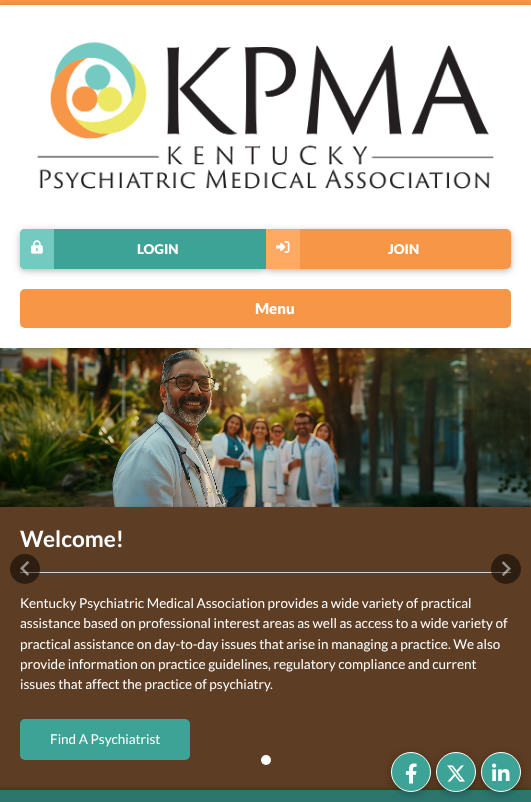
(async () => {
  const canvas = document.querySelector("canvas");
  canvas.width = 531;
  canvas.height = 802;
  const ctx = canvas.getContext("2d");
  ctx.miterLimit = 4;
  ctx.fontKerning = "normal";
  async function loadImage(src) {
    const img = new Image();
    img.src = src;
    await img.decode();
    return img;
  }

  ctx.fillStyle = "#f79647";
  ctx.fillRect(0, 0, 531, 802);
  ctx.fillStyle = "#5d3d23";
  ctx.fillRect(0, 507, 531, 283);
  ctx.drawImage(await loadImage("img/4.png"), 0, 348, 531, 159);
  ctx.fillStyle = "rgba(0, 0, 0, 0.12)";
  ctx.filter = "blur(5px)";
  ctx.beginPath();
  ctx.rect(0, 7, 531, 343);
  ctx.fill();
  ctx.filter = "none";
  ctx.fillStyle = "rgba(0, 0, 0, 0.16)";
  ctx.filter = "blur(2.5px)";
  ctx.beginPath();
  ctx.rect(0, 7, 531, 343);
  ctx.fill();
  ctx.filter = "none";
  ctx.fillStyle = "#ffffff";
  ctx.fillRect(0, 5, 531, 343);
  ctx.drawImage(await loadImage("img/1.png"), 37, 42, 457, 147);
  ctx.fillStyle = "rgba(0, 0, 0, 0.12)";
  ctx.filter = "blur(5px)";
  ctx.beginPath();
  ctx.roundRect(20, 231, 246, 40, 5);
  ctx.fill();
  ctx.filter = "none";
  ctx.fillStyle = "rgba(0, 0, 0, 0.16)";
  ctx.filter = "blur(2.5px)";
  ctx.beginPath();
  ctx.roundRect(20, 231, 246, 40, 5);
  ctx.fill();
  ctx.filter = "none";
  ctx.fillStyle = "rgba(0, 0, 0, 0.12)";
  ctx.filter = "blur(5px)";
  ctx.beginPath();
  ctx.roundRect(266, 231, 245, 40, 5);
  ctx.fill();
  ctx.filter = "none";
  ctx.fillStyle = "rgba(0, 0, 0, 0.16)";
  ctx.filter = "blur(2.5px)";
  ctx.beginPath();
  ctx.roundRect(266, 231, 245, 40, 5);
  ctx.fill();
  ctx.filter = "none";
  ctx.fillStyle = "#3ea397";
  ctx.beginPath();
  ctx.roundRect(20, 229, 246, 40, [5, 0, 0, 5]);
  ctx.fill();
  ctx.fillStyle = "#74cac0";
  ctx.beginPath();
  ctx.roundRect(20, 229, 34, 40, [5, 0, 0, 5]);
  ctx.fill();
  ctx.drawImage(await loadImage("img/2.png"), 31, 240, 12, 14);
  ctx.fillStyle = "#f79647";
  ctx.beginPath();
  ctx.roundRect(266, 229, 245, 40, [0, 5, 5, 0]);
  ctx.fill();
  ctx.fillStyle = "#ffa962";
  ctx.fillRect(266, 229, 34, 40);
  ctx.drawImage(await loadImage("img/3.png"), 276, 241, 14, 12);
  ctx.fillStyle = "#f79647";
  ctx.beginPath();
  ctx.roundRect(20, 289, 491, 39, 5);
  ctx.fill();
  ctx.save();
  ctx.beginPath();
  ctx.rect(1, 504, 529, 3);
  ctx.clip();
  ctx.fillStyle = "rgba(0, 0, 0, 0.12)";
  ctx.filter = "blur(5px)";
  ctx.beginPath();
  ctx.rect(0, 509, 531, 283);
  ctx.fill();
  ctx.filter = "none";
  ctx.restore();
  ctx.save();
  ctx.beginPath();
  ctx.rect(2, 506, 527, 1);
  ctx.clip();
  ctx.fillStyle = "rgba(0, 0, 0, 0.16)";
  ctx.filter = "blur(2.5px)";
  ctx.beginPath();
  ctx.rect(0, 509, 531, 283);
  ctx.fill();
  ctx.filter = "none";
  ctx.restore();
  ctx.fillStyle = "#d4d4d4";
  ctx.fillRect(20, 572, 491, 1);
  ctx.fillStyle = "#3ea397";
  ctx.beginPath();
  ctx.roundRect(20, 719, 170, 41, 5);
  ctx.fill();
  ctx.fillStyle = "rgba(0, 0, 0, 0.5)";
  ctx.beginPath();
  ctx.arc(25, 569, 15, 0, Math.PI * 2);
  ctx.fill();
  ctx.drawImage(await loadImage("img/5.png"), 20, 561, 10, 15);
  ctx.beginPath();
  ctx.arc(506, 569, 15, 0, Math.PI * 2);
  ctx.fill();
  ctx.drawImage(await loadImage("img/6.png"), 501, 561, 10, 15);
  ctx.fillStyle = "#ffffff";
  ctx.beginPath();
  ctx.arc(266, 760, 5, 0, Math.PI * 2);
  ctx.fill();
  ctx.fillStyle = "rgba(11, 11, 11, 0.12)";
  ctx.filter = "blur(5px)";
  ctx.beginPath();
  ctx.rect(0, 792, 531, 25);
  ctx.fill();
  ctx.filter = "none";
  ctx.fillStyle = "rgba(11, 11, 11, 0.16)";
  ctx.filter = "blur(2.5px)";
  ctx.beginPath();
  ctx.rect(0, 792, 531, 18);
  ctx.fill();
  ctx.filter = "none";
  ctx.fillStyle = "rgba(0, 0, 0, 0.12)";
  ctx.filter = "blur(5px)";
  ctx.beginPath();
  ctx.rect(0, 792, 531, 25);
  ctx.fill();
  ctx.filter = "none";
  ctx.fillStyle = "rgba(0, 0, 0, 0.16)";
  ctx.filter = "blur(2.5px)";
  ctx.beginPath();
  ctx.rect(0, 792, 531, 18);
  ctx.fill();
  ctx.filter = "none";
  ctx.fillStyle = "#2d766e";
  ctx.fillRect(0, 790, 531, 12);
  ctx.fillStyle = "rgba(0, 0, 0, 0.12)";
  ctx.filter = "blur(5px)";
  ctx.beginPath();
  ctx.roundRect(481, 754, 40, 40, 20);
  ctx.fill();
  ctx.filter = "none";
  ctx.fillStyle = "rgba(0, 0, 0, 0.16)";
  ctx.filter = "blur(2.5px)";
  ctx.beginPath();
  ctx.roundRect(481, 754, 40, 40, 20);
  ctx.fill();
  ctx.filter = "none";
  ctx.fillStyle = "#3ea397";
  ctx.beginPath();
  ctx.arc(501, 772, 19.5, 0, Math.PI * 2);
  ctx.fill();
  ctx.strokeStyle = "#ffffff";
  ctx.stroke();
  ctx.fillStyle = "rgba(0, 0, 0, 0.12)";
  ctx.filter = "blur(5px)";
  ctx.beginPath();
  ctx.roundRect(436, 754, 40, 40, 20);
  ctx.fill();
  ctx.filter = "none";
  ctx.fillStyle = "rgba(0, 0, 0, 0.16)";
  ctx.filter = "blur(2.5px)";
  ctx.beginPath();
  ctx.roundRect(436, 754, 40, 40, 20);
  ctx.fill();
  ctx.filter = "none";
  ctx.fillStyle = "#3ea397";
  ctx.beginPath();
  ctx.arc(456, 772, 19.5, 0, Math.PI * 2);
  ctx.fill();
  ctx.stroke();
  ctx.fillStyle = "rgba(0, 0, 0, 0.12)";
  ctx.filter = "blur(5px)";
  ctx.beginPath();
  ctx.roundRect(391, 754, 40, 40, 20);
  ctx.fill();
  ctx.filter = "none";
  ctx.fillStyle = "rgba(0, 0, 0, 0.16)";
  ctx.filter = "blur(2.5px)";
  ctx.beginPath();
  ctx.roundRect(391, 754, 40, 40, 20);
  ctx.fill();
  ctx.filter = "none";
  ctx.fillStyle = "#3ea397";
  ctx.beginPath();
  ctx.arc(411, 772, 19.5, 0, Math.PI * 2);
  ctx.fill();
  ctx.stroke();
  ctx.drawImage(await loadImage("img/7.png"), 405, 763, 12, 21);
  ctx.drawImage(await loadImage("img/8.png"), 447, 765, 18, 17);
  ctx.drawImage(await loadImage("img/9.png"), 492, 763, 18, 18);
  ctx.font = "900 13.5px Lato";
  ctx.fillStyle = "#ffffff";
  ctx.fillText("LOGIN", 137, 254);
  ctx.fillText("JOIN", 388, 254);
  ctx.font = "900 15px Lato";
  ctx.fillText("Menu", 255, 314);
  ctx.font = "bold 22.5px Lato";
  ctx.fillText("Welcome!", 20, 547);
  ctx.font = "13.5px Lato";
  for (const [text, x, y] of [
    ["Kentucky Psychiatric Medical Association provides a wide variety of practical", 20, 608],
    ["assistance based on professional interest areas as well as access to a wide variety of", 20, 628],
    ["practical assistance on day-to-day issues that arise in managing a practice. We also", 20, 649],
    ["provide information on practice guidelines, regulatory compliance and current", 20, 669],
    ["issues that affect the practice of psychiatry.", 20, 689],
    ["Find A Psychiatrist", 50, 744],
  ]) {
    ctx.fillText(text, x, y);
  }
})();
